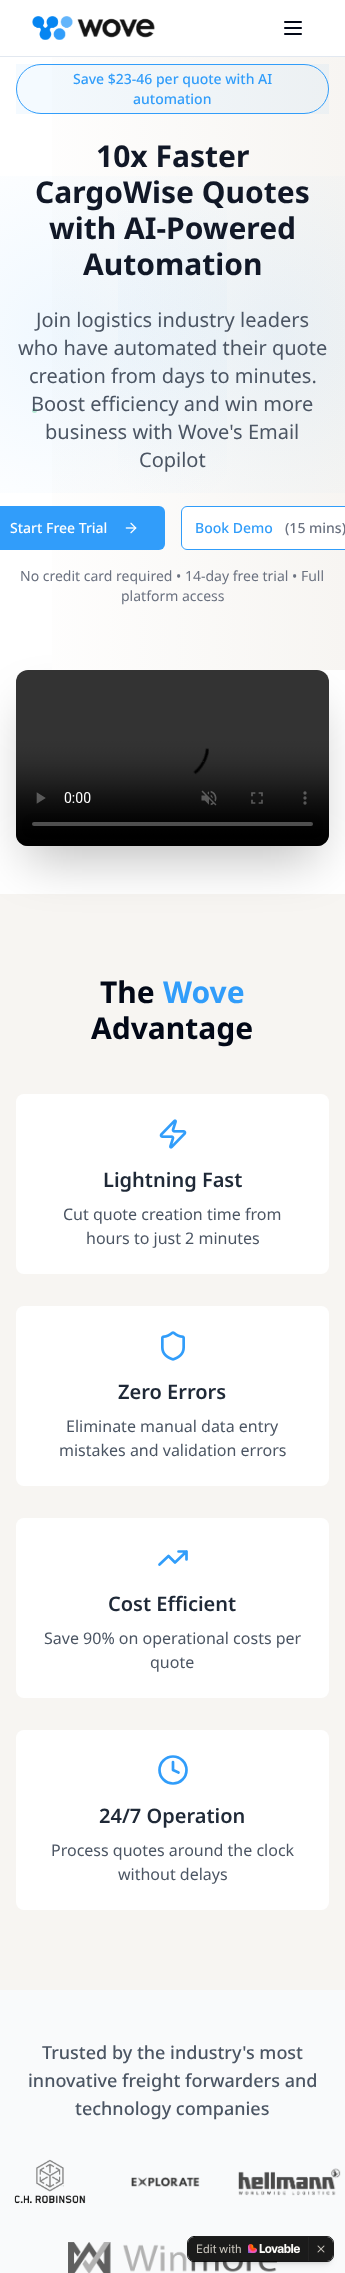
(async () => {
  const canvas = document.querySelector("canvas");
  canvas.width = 345;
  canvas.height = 2273;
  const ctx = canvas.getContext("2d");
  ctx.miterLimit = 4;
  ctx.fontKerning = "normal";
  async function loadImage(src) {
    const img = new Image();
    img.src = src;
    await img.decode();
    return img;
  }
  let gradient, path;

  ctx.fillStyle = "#ffffff";
  ctx.fillRect(0, 0, 345, 2273);
  ctx.fillStyle = "#e2e8f0";
  ctx.fillRect(0, 56, 345, 1);
  ctx.drawImage(await loadImage("img/1.png"), 32, 16, 123, 24);
  ctx.drawImage(await loadImage("img/2.png"), 284, 21, 18, 14);
  ctx.fillStyle = "#f7f5f2";
  ctx.fillRect(0, 894, 345, 1096);
  ctx.fillStyle = "rgba(0, 0, 0, 0.25)";
  ctx.filter = "blur(25px)";
  ctx.beginPath();
  ctx.rect(28, 707, 289, 152);
  ctx.fill();
  ctx.filter = "none";
  gradient = ctx.createLinearGradient(0, 335, 345, 335);
  gradient.addColorStop(0, "#ffffff");
  gradient.addColorStop(1, "#f7f5f2");
  ctx.fillStyle = gradient;
  ctx.fillRect(52, 57, 293, 613);
  ctx.fillStyle = "rgba(49, 157, 250, 0.05)";
  ctx.fillRect(16, 64, 313, 50);
  ctx.beginPath();
  ctx.roundRect(16.5, 64.5, 312, 49, 24.5);
  ctx.strokeStyle = "#319dfa";
  ctx.stroke();
  ctx.fillStyle = "#319dfa";
  ctx.beginPath();
  ctx.roundRect(0, 506, 165, 44, [0, 6, 6, 0]);
  ctx.fill();
  ctx.drawImage(await loadImage("img/3.png"), 125, 522, 12, 12);
  ctx.fillStyle = "#ffffff";
  ctx.beginPath();
  ctx.roundRect(181, 506, 164, 44, [6, 0, 0, 6]);
  ctx.fill();
  ctx.beginPath();
  ctx.roundRect(181.5, 506.5, 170, 43, 5.5);
  ctx.stroke();
  gradient = ctx.createRadialGradient(276, 335, 0, 276, 335, 434);
  gradient.addColorStop(0, "rgba(49, 157, 250, 0.08)");
  gradient.addColorStop(0.5, "rgba(49, 157, 250, 0)");
  ctx.fillStyle = gradient;
  ctx.fillRect(118, 176, 227, 317);
  gradient = ctx.createRadialGradient(69, 335, 0, 69, 335, 434);
  gradient.addColorStop(0, "rgba(49, 157, 250, 0.08)");
  gradient.addColorStop(0.5, "rgba(49, 157, 250, 0)");
  ctx.fillStyle = gradient;
  ctx.fillRect(0, 176, 227, 317);
  ctx.fillStyle = "rgba(82, 203, 147, 0.4)";
  ctx.beginPath();
  ctx.arc(34.5, 410.5, 2.5, 0, Math.PI * 2);
  ctx.fill();
  ctx.drawImage(await loadImage("img/4.png"), 16, 670, 313, 176);
  ctx.fillStyle = "#ffffff";
  ctx.beginPath();
  ctx.roundRect(16, 1094, 313, 180, 8);
  ctx.fill();
  ctx.drawImage(await loadImage("img/5.png"), 159, 1119, 28, 30);
  ctx.beginPath();
  ctx.roundRect(16, 1306, 313, 180, 8);
  ctx.fill();
  ctx.drawImage(await loadImage("img/6.png"), 161, 1331, 24, 30);
  ctx.beginPath();
  ctx.roundRect(16, 1518, 313, 180, 8);
  ctx.fill();
  path = new Path2D("M186.5 1551.5L175 1562.5L168.5 1556L159.5 1564.5M178.5 1551.5H186.5V1559.5");
  ctx.lineWidth = 2.7;
  ctx.lineCap = "round";
  ctx.lineJoin = "round";
  ctx.stroke(path);
  ctx.beginPath();
  ctx.roundRect(16, 1730, 313, 180, 8);
  ctx.fill();
  ctx.beginPath();
  ctx.arc(173, 1770, 13.5, 0, Math.PI * 2);
  ctx.stroke();
  path = new Path2D("M173 1762V1770L178.5 1772.5");
  ctx.stroke(path);
  ctx.fillStyle = "#f9fafb";
  ctx.fillRect(0, 1990, 345, 283);
  ctx.drawImage(await loadImage("img/7.png"), 14, 2159, 72, 45);
  ctx.drawImage(await loadImage("img/8.png"), 131, 2177, 69, 10);
  ctx.drawImage(await loadImage("img/9.png"), 238, 2168, 103, 28);
  ctx.drawImage(await loadImage("img/10.png"), 68, 2242, 209, 31);
  ctx.fillStyle = "rgba(0, 0, 0, 0.08)";
  ctx.filter = "blur(4px)";
  ctx.beginPath();
  ctx.roundRect(192, 2249, 137, 16, 2);
  ctx.fill();
  ctx.filter = "none";
  ctx.filter = "blur(2px)";
  ctx.beginPath();
  ctx.roundRect(190, 2243, 141, 20, 4);
  ctx.fill();
  ctx.filter = "none";
  ctx.filter = "blur(1px)";
  ctx.beginPath();
  ctx.roundRect(189, 2240, 143, 22, 5);
  ctx.fill();
  ctx.filter = "none";
  ctx.fillStyle = "rgba(0, 0, 0, 0.04)";
  path = new Path2D("M188 2255V2256C188 2259 191 2262 194 2262H327C330 2262 333 2259 333 2256V2255C333 2258 330 2261 327 2261H194C191 2261 188 2258 188 2255Z");
  ctx.fill(path);
  ctx.beginPath();
  ctx.roundRect(187.5, 2236.5, 146, 25, 6.5);
  ctx.strokeStyle = "rgba(0, 0, 0, 0.88)";
  ctx.lineWidth = 1;
  ctx.lineJoin = "miter";
  ctx.stroke();
  ctx.fillStyle = "#1b1b1b";
  ctx.beginPath();
  ctx.roundRect(188, 2237, 145, 24, 6);
  ctx.fill();
  ctx.drawImage(await loadImage("img/11.png"), 248, 2244, 52, 10);
  ctx.fillStyle = "#242424";
  ctx.fillRect(308, 2237, 1, 24);
  ctx.drawImage(await loadImage("img/12.png"), 317, 2245, 8, 8);
  ctx.font = "500 14px Noto Sans";
  ctx.fillStyle = "#319dfa";
  ctx.fillText("Save $23-46 per quote with AI", 73, 84);
  ctx.fillText("automation", 133, 104);
  ctx.font = "bold 30px Noto Sans";
  ctx.fillStyle = "#111827";
  for (const [text, x, y] of [
    ["10x Faster", 96, 167],
    ["CargoWise Quotes", 35, 203],
    ["with AI-Powered", 49, 239],
    ["Automation", 83, 275],
  ]) {
    ctx.fillText(text, x, y);
  }
  ctx.font = "20px Noto Sans";
  ctx.fillStyle = "#4b5563";
  for (const [text, x, y] of [
    ["Join logistics industry leaders", 36, 327],
    ["who have automated their quote", 18, 355],
    ["creation from days to minutes.", 29, 383],
    ["Boost efficiency and win more", 31, 411],
    ["business with Wove's Email", 45, 439],
    ["Copilot", 139, 467],
  ]) {
    ctx.fillText(text, x, y);
  }
  ctx.font = "500 14px Noto Sans";
  ctx.fillStyle = "#ffffff";
  ctx.fillText("Start Free Trial", 10, 533);
  ctx.fillStyle = "#319dfa";
  ctx.fillText("Book Demo", 195, 533);
  ctx.fillStyle = "#6b7280";
  ctx.fillText("(15 mins)", 285, 533);
  ctx.font = "14px Noto Sans";
  ctx.fillText("No credit card required • 14-day free trial • Full", 20, 581);
  ctx.fillText("platform access", 121, 601);
  ctx.font = "bold 30px Noto Sans";
  ctx.fillStyle = "#020817";
  ctx.fillText("The", 100, 1003);
  ctx.fillStyle = "#319dfa";
  ctx.fillText("Wove", 163, 1003);
  ctx.fillStyle = "#020817";
  ctx.fillText("Advantage", 91, 1039);
  ctx.font = "600 20px Noto Sans";
  ctx.fillStyle = "#1f2937";
  ctx.fillText("Lightning Fast", 103, 1187);
  ctx.font = "16px Noto Sans";
  ctx.fillStyle = "#4b5563";
  ctx.fillText("Cut quote creation time from", 63, 1220);
  ctx.fillText("hours to just 2 minutes", 86, 1244);
  ctx.font = "600 20px Noto Sans";
  ctx.fillStyle = "#1f2937";
  ctx.fillText("Zero Errors", 118, 1399);
  ctx.font = "16px Noto Sans";
  ctx.fillStyle = "#4b5563";
  ctx.fillText("Eliminate manual data entry", 66, 1432);
  ctx.fillText("mistakes and validation errors", 59, 1456);
  ctx.font = "600 20px Noto Sans";
  ctx.fillStyle = "#1f2937";
  ctx.fillText("Cost Efficient", 108, 1611);
  ctx.font = "16px Noto Sans";
  ctx.fillStyle = "#4b5563";
  ctx.fillText("Save 90% on operational costs per", 44, 1644);
  ctx.fillText("quote", 150, 1668);
  ctx.font = "600 20px Noto Sans";
  ctx.fillStyle = "#1f2937";
  ctx.fillText("24/7 Operation", 99, 1823);
  ctx.font = "16px Noto Sans";
  ctx.fillStyle = "#4b5563";
  ctx.fillText("Process quotes around the clock", 51, 1856);
  ctx.fillText("without delays", 118, 1880);
  ctx.font = "500 18px Noto Sans";
  for (const [text, x, y] of [
    ["Trusted by the industry's most", 42, 2059],
    ["innovative freight forwarders and", 28, 2087],
    ["technology companies", 75, 2115],
  ]) {
    ctx.fillText(text, x, y);
  }
  ctx.font = "12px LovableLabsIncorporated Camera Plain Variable";
  ctx.fillStyle = "#c5c1b9";
  ctx.fillText("Edit with", 196, 2253);
})();
